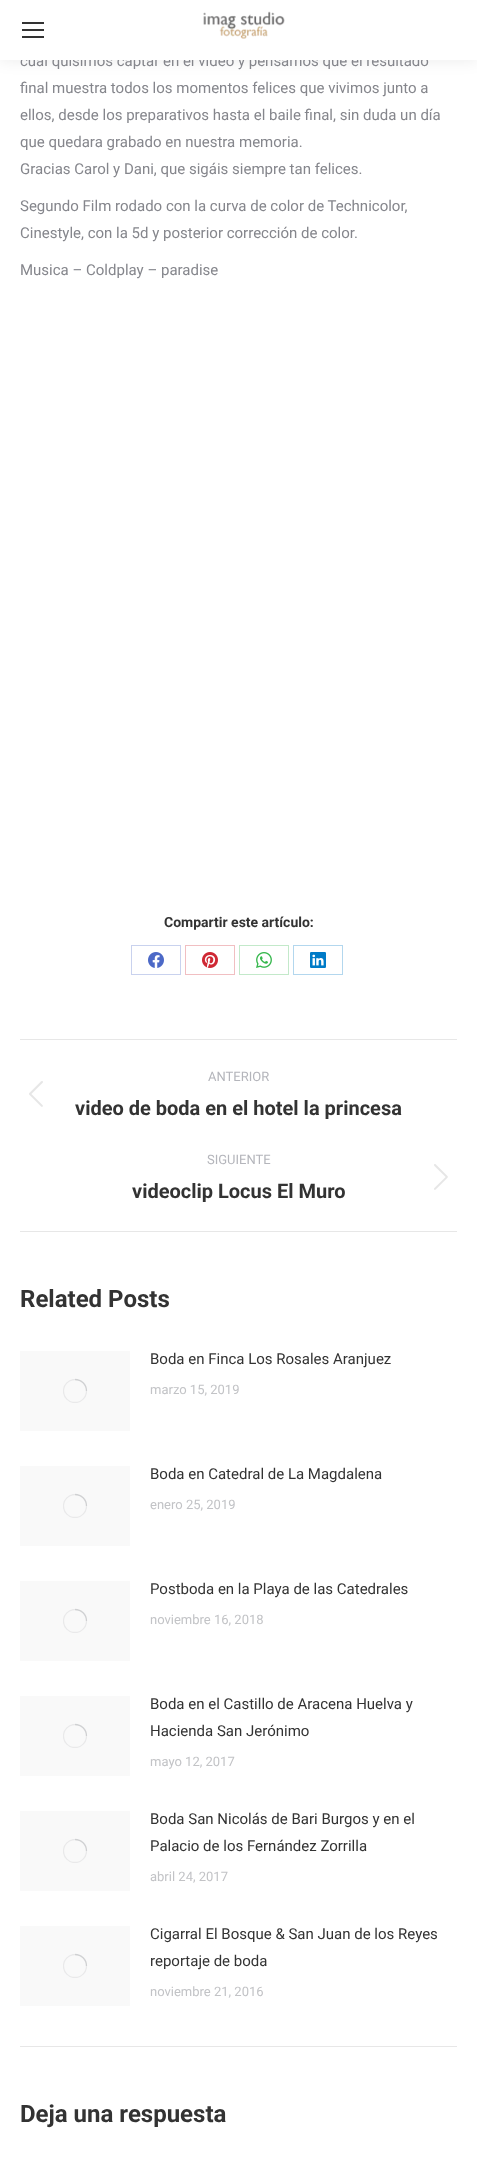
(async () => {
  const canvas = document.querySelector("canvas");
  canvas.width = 477;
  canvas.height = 2160;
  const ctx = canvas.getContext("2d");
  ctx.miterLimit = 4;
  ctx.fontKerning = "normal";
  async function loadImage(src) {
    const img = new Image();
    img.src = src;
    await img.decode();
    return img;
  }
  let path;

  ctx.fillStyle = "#ffffff";
  ctx.fillRect(0, 0, 477, 2160);
  ctx.fillStyle = "rgba(0, 0, 0, 0.07)";
  ctx.filter = "blur(7.5px)";
  ctx.beginPath();
  ctx.rect(-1, -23, 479, 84);
  ctx.fill();
  ctx.filter = "none";
  ctx.strokeStyle = "#c9d2ee";
  ctx.strokeRect(131.5, 945.5, 49, 29);
  ctx.drawImage(await loadImage("img/2.png"), 148, 952, 16, 16);
  ctx.strokeStyle = "#f1bfc2";
  ctx.strokeRect(185.5, 945.5, 49, 29);
  ctx.drawImage(await loadImage("img/3.png"), 202, 952, 16, 16);
  ctx.strokeStyle = "#c3e9ca";
  ctx.strokeRect(239.5, 945.5, 49, 29);
  ctx.drawImage(await loadImage("img/4.png"), 256, 952, 16, 16);
  ctx.strokeStyle = "#b3d7ee";
  ctx.strokeRect(293.5, 945.5, 49, 29);
  ctx.drawImage(await loadImage("img/5.png"), 310, 952, 16, 16);
  ctx.fillStyle = "#e7e7e7";
  ctx.fillRect(20, 1039, 437, 1);
  ctx.fillRect(20, 1231, 437, 1);
  ctx.drawImage(await loadImage("img/6.png"), 29, 1081, 14, 26);
  ctx.drawImage(await loadImage("img/7.png"), 434, 1164, 14, 26);
  ctx.fillRect(20, 2046, 437, 1);
  ctx.fillStyle = "#f9f9f9";
  ctx.fillRect(20, 1351, 110, 80);
  ctx.save();
  ctx.beginPath();
  ctx.rect(63, 1379, 24, 24);
  ctx.clip();
  ctx.beginPath();
  ctx.arc(75, 1391, 11.5, 0, Math.PI * 2);
  ctx.strokeStyle = "#e9e9ea";
  ctx.lineWidth = 1.3;
  ctx.stroke();
  ctx.restore();
  path = new Path2D("M86.5 1391C86.5 1384.5 81.5 1379.5 75 1379.5");
  ctx.strokeStyle = "rgba(133, 134, 140, 0.25)";
  ctx.lineWidth = 1.3;
  ctx.stroke(path);
  ctx.fillRect(20, 1466, 110, 80);
  ctx.save();
  ctx.beginPath();
  ctx.rect(63, 1494, 24, 24);
  ctx.clip();
  ctx.beginPath();
  ctx.arc(75, 1506, 11.5, 0, Math.PI * 2);
  ctx.strokeStyle = "#e9e9ea";
  ctx.stroke();
  ctx.restore();
  path = new Path2D("M86.5 1506C86.5 1499.5 81.5 1494.5 75 1494.5");
  ctx.stroke(path);
  ctx.fillRect(20, 1581, 110, 80);
  ctx.save();
  ctx.beginPath();
  ctx.rect(63, 1609, 24, 24);
  ctx.clip();
  ctx.beginPath();
  ctx.arc(75, 1621, 11.5, 0, Math.PI * 2);
  ctx.strokeStyle = "#e9e9ea";
  ctx.stroke();
  ctx.restore();
  path = new Path2D("M86.5 1621C86.5 1614.5 81.5 1609.5 75 1609.5");
  ctx.stroke(path);
  ctx.fillRect(20, 1696, 110, 80);
  ctx.save();
  ctx.beginPath();
  ctx.rect(63, 1724, 24, 24);
  ctx.clip();
  ctx.beginPath();
  ctx.arc(75, 1736, 11.5, 0, Math.PI * 2);
  ctx.strokeStyle = "#e9e9ea";
  ctx.stroke();
  ctx.restore();
  path = new Path2D("M86.5 1736C86.5 1729.5 81.5 1724.5 75 1724.5");
  ctx.stroke(path);
  ctx.fillRect(20, 1811, 110, 80);
  ctx.save();
  ctx.beginPath();
  ctx.rect(63, 1839, 24, 24);
  ctx.clip();
  ctx.beginPath();
  ctx.arc(75, 1851, 11.5, 0, Math.PI * 2);
  ctx.strokeStyle = "#e9e9ea";
  ctx.stroke();
  ctx.restore();
  path = new Path2D("M86.5 1851C86.5 1844.5 81.5 1839.5 75 1839.5");
  ctx.stroke(path);
  ctx.fillRect(20, 1926, 110, 80);
  ctx.save();
  ctx.beginPath();
  ctx.rect(63, 1954, 24, 24);
  ctx.clip();
  ctx.beginPath();
  ctx.arc(75, 1966, 11.5, 0, Math.PI * 2);
  ctx.strokeStyle = "#e9e9ea";
  ctx.stroke();
  ctx.restore();
  path = new Path2D("M86.5 1966C86.5 1959.5 81.5 1954.5 75 1954.5");
  ctx.stroke(path);
  ctx.font = "15px Roboto";
  ctx.fillStyle = "#85868c";
  ctx.fillText("cual quisimos captar en el vídeo y pensamos que el resultado", 20, 66);
  for (const [x, y, w, h, color] of [
    [0, 0, 477, 60, "#ffffff"],
    [22, 36, 22, 2, "#333333"],
    [22, 29, 22, 2, "#333333"],
    [22, 22, 22, 2, "#333333"],
  ]) {
    ctx.fillStyle = color;
    ctx.fillRect(x, y, w, h);
  }
  ctx.drawImage(await loadImage("img/1.png"), 203, 11, 82, 28);
  ctx.fillStyle = "#85868c";
  for (const [text, x, y] of [
    ["final muestra todos los momentos felices que vivimos junto a", 20, 93],
    ["ellos, desde los preparativos hasta el baile final, sin duda un día", 20, 120],
    ["que quedara grabado en nuestra memoria.", 20, 147],
    ["Gracias Carol y Dani, que sigáis siempre tan felices.", 20, 174],
    ["Segundo Film rodado con la curva de color de Technicolor,", 20, 211],
    ["Cinestyle, con la 5d y posterior corrección de color.", 20, 238],
    ["Musica – Coldplay – paradise", 20, 275],
  ]) {
    ctx.fillText(text, x, y);
  }
  ctx.font = "bold 14px Roboto";
  ctx.fillStyle = "#333333";
  ctx.fillText("Compartir este artículo:", 164, 927);
  ctx.font = "13px Roboto";
  ctx.fillStyle = "#b4b5bb";
  ctx.fillText("ANTERIOR", 208, 1081);
  ctx.font = "bold 20px Roboto";
  ctx.fillStyle = "#333333";
  ctx.fillText("video de boda en el hotel la princesa", 75, 1115);
  ctx.font = "13px Roboto";
  ctx.fillStyle = "#b4b5bb";
  ctx.fillText("SIGUIENTE", 207, 1164);
  ctx.font = "bold 20px Roboto";
  ctx.fillStyle = "#333333";
  ctx.fillText("videoclip Locus El Muro", 132, 1198);
  ctx.font = "bold 24px Roboto";
  ctx.fillText("Related Posts", 20, 1307);
  ctx.font = "15px Roboto";
  ctx.fillText("Boda en Finca Los Rosales Aranjuez", 150, 1364);
  ctx.font = "13px Roboto";
  ctx.fillStyle = "#c2c3c6";
  ctx.fillText("marzo 15, 2019", 150, 1394);
  ctx.font = "15px Roboto";
  ctx.fillStyle = "#333333";
  ctx.fillText("Boda en Catedral de La Magdalena", 150, 1479);
  ctx.font = "13px Roboto";
  ctx.fillStyle = "#c2c3c6";
  ctx.fillText("enero 25, 2019", 150, 1509);
  ctx.font = "15px Roboto";
  ctx.fillStyle = "#333333";
  ctx.fillText("Postboda en la Playa de las Catedrales", 150, 1594);
  ctx.font = "13px Roboto";
  ctx.fillStyle = "#c2c3c6";
  ctx.fillText("noviembre 16, 2018", 150, 1624);
  ctx.font = "15px Roboto";
  ctx.fillStyle = "#333333";
  ctx.fillText("Boda en el Castillo de Aracena Huelva y", 150, 1709);
  ctx.fillText("Hacienda San Jerónimo", 150, 1736);
  ctx.font = "13px Roboto";
  ctx.fillStyle = "#c2c3c6";
  ctx.fillText("mayo 12, 2017", 150, 1766);
  ctx.font = "15px Roboto";
  ctx.fillStyle = "#333333";
  ctx.fillText("Boda San Nicolás de Bari Burgos y en el", 150, 1824);
  ctx.fillText("Palacio de los Fernández Zorrilla", 150, 1851);
  ctx.font = "13px Roboto";
  ctx.fillStyle = "#c2c3c6";
  ctx.fillText("abril 24, 2017", 150, 1881);
  ctx.font = "15px Roboto";
  ctx.fillStyle = "#333333";
  ctx.fillText("Cigarral El Bosque & San Juan de los Reyes", 150, 1939);
  ctx.fillText("reportaje de boda", 150, 1966);
  ctx.font = "13px Roboto";
  ctx.fillStyle = "#c2c3c6";
  ctx.fillText("noviembre 21, 2016", 150, 1996);
  ctx.font = "bold 24px Roboto";
  ctx.fillStyle = "#333333";
  ctx.fillText("Deja una respuesta", 20, 2122);
})();
